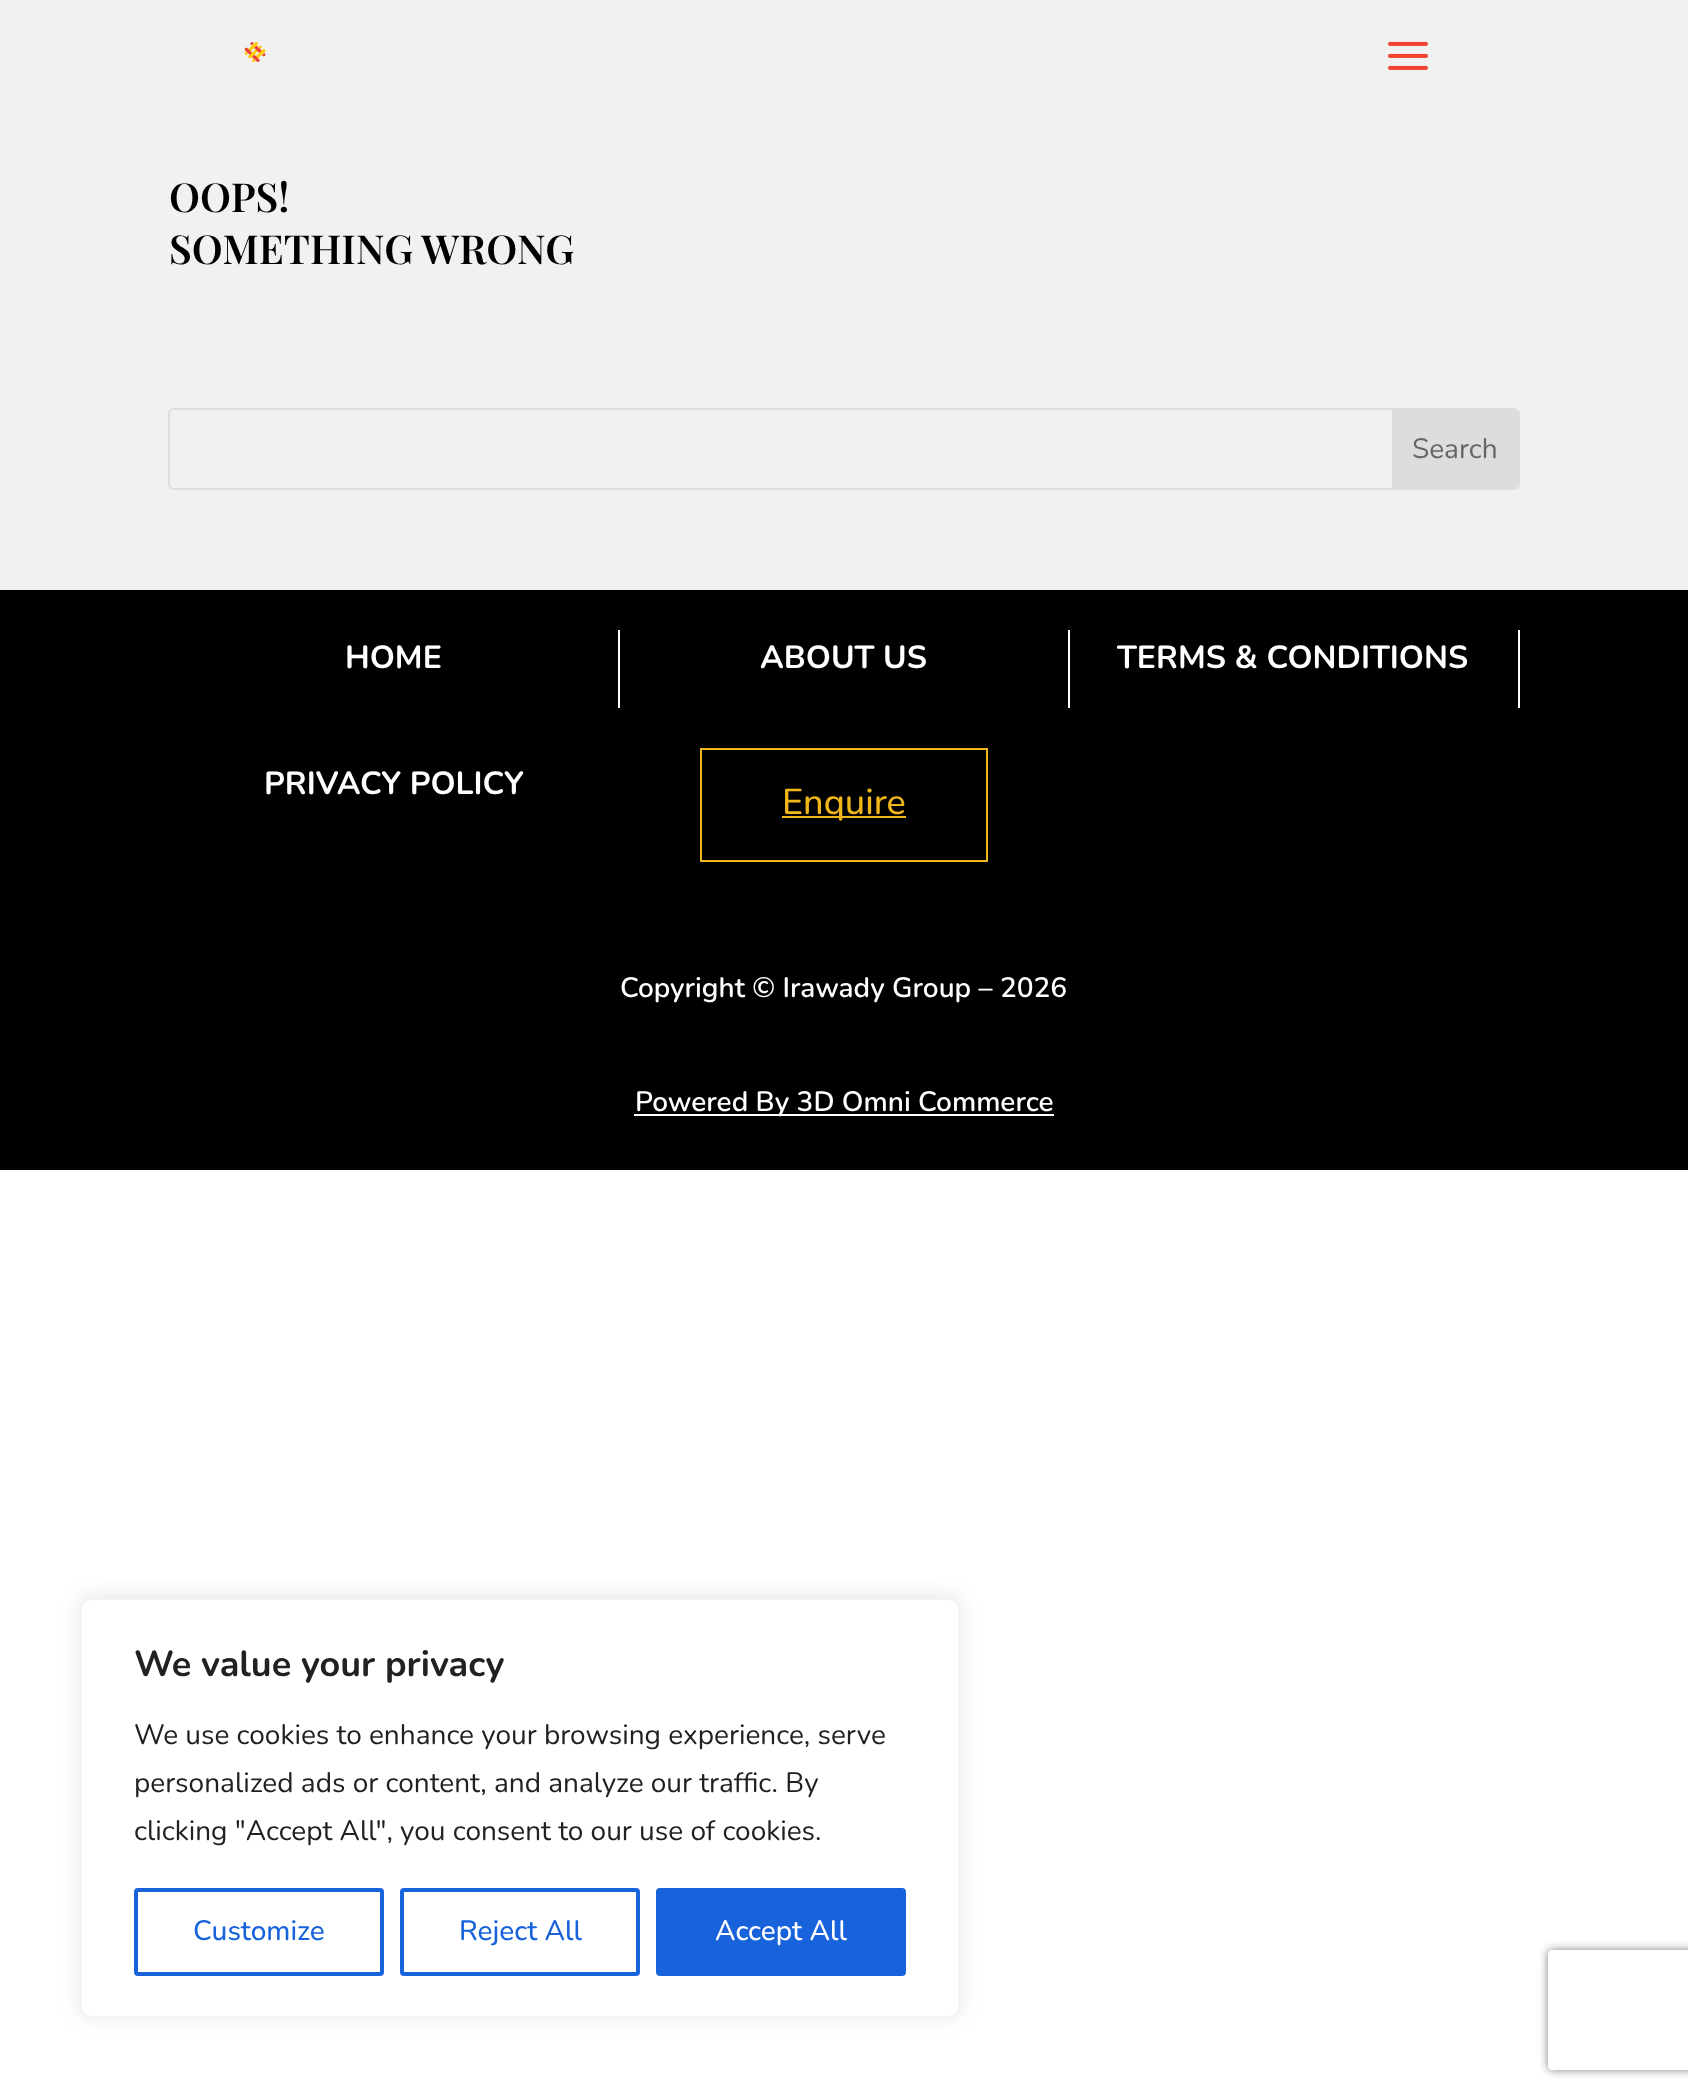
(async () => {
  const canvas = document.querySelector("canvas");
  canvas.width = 1688;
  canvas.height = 2097;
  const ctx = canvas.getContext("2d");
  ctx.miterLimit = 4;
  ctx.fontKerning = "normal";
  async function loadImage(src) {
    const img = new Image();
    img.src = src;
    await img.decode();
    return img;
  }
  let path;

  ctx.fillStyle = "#ffffff";
  ctx.fillRect(0, 0, 1688, 2097);
  ctx.fillStyle = "#f1f1f1";
  ctx.fillRect(0, 0, 1688, 590);
  ctx.drawImage(await loadImage("img/1.png"), 244, 42, 22, 20);
  ctx.drawImage(await loadImage("img/2.png"), 1388, 41, 40, 29);
  ctx.beginPath();
  ctx.roundRect(169, 409, 1350, 80, 5);
  ctx.strokeStyle = "#dddddd";
  ctx.lineWidth = 2;
  ctx.stroke();
  ctx.fillStyle = "#dddddd";
  ctx.beginPath();
  ctx.roundRect(1392, 410, 126, 78, [0, 4, 4, 0]);
  ctx.fill();
  for (const [x, y, w, h, color] of [
    [0, 590, 1688, 580, "#000000"],
    [1068, 630, 2, 78, "#ffffff"],
    [618, 630, 2, 78, "#ffffff"],
    [1518, 630, 2, 78, "#ffffff"],
  ]) {
    ctx.fillStyle = color;
    ctx.fillRect(x, y, w, h);
  }
  ctx.strokeStyle = "#f1b619";
  ctx.strokeRect(701, 749, 286, 112);
  ctx.fillStyle = "#f1b619";
  ctx.fillRect(782, 816, 124, 2);
  ctx.fillStyle = "#ffffff";
  ctx.fillRect(634, 1114, 420, 2);
  ctx.fillStyle = "rgba(172, 171, 171, 0.3)";
  ctx.filter = "blur(10px)";
  ctx.beginPath();
  ctx.roundRect(80, 1596, 880, 420, 12);
  ctx.fill();
  ctx.filter = "none";
  ctx.fillStyle = "#ffffff";
  ctx.beginPath();
  ctx.roundRect(81, 1599, 878, 418, 11);
  ctx.fill();
  ctx.strokeStyle = "#f4f4f4";
  ctx.stroke();
  ctx.beginPath();
  ctx.roundRect(136, 1890, 246, 84, 2);
  ctx.strokeStyle = "#1863dc";
  ctx.lineWidth = 4;
  ctx.stroke();
  ctx.beginPath();
  ctx.roundRect(402, 1890, 236, 84, 2);
  ctx.stroke();
  ctx.fillStyle = "#1863dc";
  ctx.beginPath();
  ctx.roundRect(658, 1890, 246, 84, 2);
  ctx.fill();
  ctx.stroke();
  ctx.save();
  path = new Path2D("M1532 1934H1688V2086H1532ZM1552 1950H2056C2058 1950 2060 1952 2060 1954V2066C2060 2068 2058 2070 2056 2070H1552C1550 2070 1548 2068 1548 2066V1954C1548 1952 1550 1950 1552 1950Z");
  ctx.clip(path, "evenodd");
  ctx.fillStyle = "#808080";
  ctx.filter = "blur(5px)";
  ctx.beginPath();
  ctx.roundRect(1548, 1950, 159, 120, 4);
  ctx.fill();
  ctx.filter = "none";
  ctx.restore();
  ctx.font = "600 40px Playfair Display";
  ctx.fillStyle = "#000000";
  ctx.fillText("OOPS!", 169, 212);
  ctx.fillText("SOMETHING WRONG", 169, 264);
  ctx.font = "200 28px Nunito";
  ctx.fillStyle = "#666666";
  ctx.fillText("Search", 1412, 458);
  ctx.font = "200 32px 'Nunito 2'";
  ctx.fillStyle = "#ffffff";
  for (const [text, x, y] of [
    ["HOME", 345, 668],
    ["ABOUT US", 760, 668],
    ["TERMS & CONDITIONS", 1117, 668],
    ["PRIVACY POLICY", 264, 794],
  ]) {
    ctx.fillText(text, x, y);
  }
  ctx.font = "200 36px 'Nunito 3'";
  ctx.fillStyle = "#f1b619";
  ctx.fillText("Enquire", 782, 814);
  ctx.font = "200 28px 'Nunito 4'";
  ctx.fillStyle = "#ffffff";
  ctx.fillText("Copyright © Irawady Group – 2026", 620, 997);
  ctx.fillText("Powered By 3D Omni Commerce", 635, 1111);
  ctx.font = "200 36px 'Nunito 2'";
  ctx.fillStyle = "#212121";
  ctx.fillText("We value your privacy", 134, 1676);
  ctx.font = "200 28px Nunito";
  for (const [text, x, y] of [
    ["We use cookies to enhance your browsing experience, serve", 134, 1744],
    ["personalized ads or content, and analyze our traffic. By", 134, 1792],
    ["clicking \"Accept All\", you consent to our use of cookies.", 134, 1840],
  ]) {
    ctx.fillText(text, x, y);
  }
  ctx.font = "200 28px 'Nunito 3'";
  ctx.fillStyle = "#1863dc";
  ctx.fillText("Customize", 193, 1940);
  ctx.fillText("Reject All", 459, 1940);
  ctx.fillStyle = "#ffffff";
  ctx.fillText("Accept All", 715, 1940);
})();
